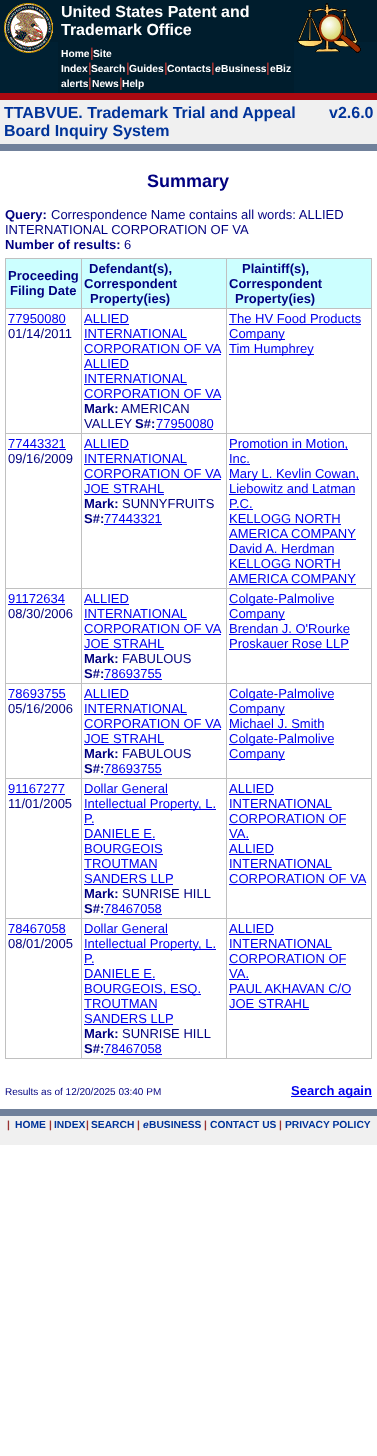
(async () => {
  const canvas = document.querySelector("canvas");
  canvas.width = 377;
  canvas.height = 1456;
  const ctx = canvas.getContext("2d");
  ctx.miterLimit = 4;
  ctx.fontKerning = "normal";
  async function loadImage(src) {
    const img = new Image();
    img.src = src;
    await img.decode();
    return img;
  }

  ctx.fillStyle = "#ffffff";
  ctx.fillRect(0, 0, 377, 1456);
  ctx.fillStyle = "#001d2d";
  ctx.fillRect(0, 0, 377, 42);
  ctx.fillStyle = "#002032";
  ctx.fillRect(0, 42, 377, 51);
  ctx.drawImage(await loadImage("img/1.png"), 4, 3, 49, 50);
  ctx.drawImage(await loadImage("img/2.png"), 297, 3, 64, 50);
  for (const [x, y, w, h, color] of [
    [58, 42, 236, 51, "#001d2d"],
    [0, 93, 377, 7, "#ac0911"],
    [0, 100, 377, 44, "#f0f0f0"],
    [0, 144, 377, 7, "#71819b"],
    [5, 258, 367, 801, "#c0c0c0"],
    [6, 259, 75, 49, "#ccffff"],
    [82, 259, 144, 49, "#ccffff"],
    [227, 259, 144, 49, "#ccffff"],
    [6, 309, 75, 124, "#ffffff"],
    [8, 324, 58, 1, "#0000ee"],
    [82, 309, 144, 124, "#ffffff"],
    [84, 324, 45, 1, "#0000ee"],
    [84, 339, 103, 1, "#0000ee"],
    [84, 354, 137, 1, "#0000ee"],
    [84, 369, 45, 1, "#0000ee"],
    [84, 384, 103, 1, "#0000ee"],
    [84, 399, 137, 1, "#0000ee"],
    [156, 429, 57, 1, "#0000ee"],
    [227, 309, 144, 124, "#ffffff"],
    [229, 324, 132, 1, "#0000ee"],
    [229, 339, 56, 1, "#0000ee"],
    [229, 354, 85, 1, "#0000ee"],
    [6, 434, 75, 154, "#ffffff"],
    [8, 449, 58, 1, "#0000ee"],
    [82, 434, 144, 154, "#ffffff"],
    [84, 449, 45, 1, "#0000ee"],
    [84, 464, 103, 1, "#0000ee"],
    [84, 479, 137, 1, "#0000ee"],
    [84, 494, 80, 1, "#0000ee"],
    [104, 524, 58, 1, "#0000ee"],
    [227, 434, 144, 154, "#ffffff"],
    [229, 449, 119, 1, "#0000ee"],
    [229, 464, 21, 1, "#0000ee"],
    [229, 479, 130, 1, "#0000ee"],
    [229, 494, 126, 1, "#0000ee"],
    [229, 509, 24, 1, "#0000ee"],
    [229, 524, 112, 1, "#0000ee"],
    [229, 539, 127, 1, "#0000ee"],
    [229, 554, 105, 1, "#0000ee"],
    [229, 569, 112, 1, "#0000ee"],
    [229, 584, 127, 1, "#0000ee"],
    [6, 589, 75, 94, "#ffffff"],
    [8, 604, 57, 1, "#0000ee"],
    [82, 589, 144, 94, "#ffffff"],
    [84, 604, 45, 1, "#0000ee"],
    [84, 619, 103, 1, "#0000ee"],
    [84, 634, 137, 1, "#0000ee"],
    [84, 649, 80, 1, "#0000ee"],
    [104, 679, 58, 1, "#0000ee"],
    [227, 589, 144, 94, "#ffffff"],
    [229, 604, 105, 1, "#0000ee"],
    [229, 619, 56, 1, "#0000ee"],
    [229, 634, 121, 1, "#0000ee"],
    [229, 649, 120, 1, "#0000ee"],
    [6, 684, 75, 94, "#ffffff"],
    [8, 699, 58, 1, "#0000ee"],
    [82, 684, 144, 94, "#ffffff"],
    [84, 699, 45, 1, "#0000ee"],
    [84, 714, 103, 1, "#0000ee"],
    [84, 729, 137, 1, "#0000ee"],
    [84, 744, 80, 1, "#0000ee"],
    [104, 774, 58, 1, "#0000ee"],
    [227, 684, 144, 94, "#ffffff"],
    [229, 699, 105, 1, "#0000ee"],
    [229, 714, 56, 1, "#0000ee"],
    [229, 729, 95, 1, "#0000ee"],
    [229, 744, 105, 1, "#0000ee"],
    [229, 759, 56, 1, "#0000ee"],
    [6, 779, 75, 139, "#ffffff"],
    [8, 794, 57, 1, "#0000ee"],
    [82, 779, 144, 139, "#ffffff"],
    [84, 794, 84, 1, "#0000ee"],
    [84, 809, 132, 1, "#0000ee"],
    [84, 824, 10, 1, "#0000ee"],
    [84, 839, 71, 1, "#0000ee"],
    [84, 854, 79, 1, "#0000ee"],
    [84, 869, 73, 1, "#0000ee"],
    [84, 884, 89, 1, "#0000ee"],
    [104, 914, 58, 1, "#0000ee"],
    [227, 779, 144, 139, "#ffffff"],
    [229, 794, 45, 1, "#0000ee"],
    [229, 809, 103, 1, "#0000ee"],
    [229, 824, 117, 1, "#0000ee"],
    [229, 839, 20, 1, "#0000ee"],
    [229, 854, 45, 1, "#0000ee"],
    [229, 869, 103, 1, "#0000ee"],
    [229, 884, 137, 1, "#0000ee"],
    [6, 919, 75, 139, "#ffffff"],
    [8, 934, 58, 1, "#0000ee"],
    [82, 919, 144, 139, "#ffffff"],
    [84, 934, 84, 1, "#0000ee"],
    [84, 949, 132, 1, "#0000ee"],
    [84, 964, 10, 1, "#0000ee"],
    [84, 979, 71, 1, "#0000ee"],
    [84, 994, 117, 1, "#0000ee"],
    [84, 1009, 73, 1, "#0000ee"],
    [84, 1024, 89, 1, "#0000ee"],
    [104, 1054, 58, 1, "#0000ee"],
    [227, 919, 144, 139, "#ffffff"],
    [229, 934, 45, 1, "#0000ee"],
    [229, 949, 103, 1, "#0000ee"],
    [229, 964, 117, 1, "#0000ee"],
    [229, 979, 20, 1, "#0000ee"],
    [229, 994, 122, 1, "#0000ee"],
    [229, 1009, 80, 1, "#0000ee"],
    [291, 1096, 81, 1, "#0000ee"],
    [0, 1109, 377, 7, "#71819b"],
    [0, 1116, 377, 29, "#f0f0f0"],
  ]) {
    ctx.fillStyle = color;
    ctx.fillRect(x, y, w, h);
  }
  ctx.font = "bold 16px Liberation Sans";
  ctx.fillStyle = "#ffffff";
  ctx.fillText("United States Patent and", 61, 17);
  ctx.fillText("Trademark Office", 61, 35);
  ctx.font = "bold 10.25px Liberation Sans";
  ctx.fillText("Home", 61, 57);
  ctx.font = "bold 13px Liberation Sans";
  ctx.fillStyle = "#993333";
  ctx.fillText("|", 90, 57);
  ctx.font = "bold 10.25px Liberation Sans";
  ctx.fillStyle = "#ffffff";
  ctx.fillText("Site", 93, 57);
  ctx.fillText("Index", 61, 72);
  ctx.font = "bold 13px Liberation Sans";
  ctx.fillStyle = "#993333";
  ctx.fillText("|", 88, 72);
  ctx.font = "bold 10.25px Liberation Sans";
  ctx.fillStyle = "#ffffff";
  ctx.fillText("Search", 91, 72);
  ctx.font = "bold 13px Liberation Sans";
  ctx.fillStyle = "#993333";
  ctx.fillText("|", 126, 72);
  ctx.font = "bold 10.25px Liberation Sans";
  ctx.fillStyle = "#ffffff";
  ctx.fillText("Guides", 129, 72);
  ctx.font = "bold 13px Liberation Sans";
  ctx.fillStyle = "#993333";
  ctx.fillText("|", 164, 72);
  ctx.font = "bold 10.25px Liberation Sans";
  ctx.fillStyle = "#ffffff";
  ctx.fillText("Contacts", 167, 72);
  ctx.font = "bold 13px Liberation Sans";
  ctx.fillStyle = "#993333";
  ctx.fillText("|", 211, 72);
  ctx.font = "italic bold 10.25px Liberation Sans";
  ctx.fillStyle = "#ffffff";
  ctx.fillText("e", 215, 72);
  ctx.font = "bold 10.25px Liberation Sans";
  ctx.fillText("Business", 221, 72);
  ctx.font = "bold 13px Liberation Sans";
  ctx.fillStyle = "#993333";
  ctx.fillText("|", 266, 72);
  ctx.font = "bold 10.25px Liberation Sans";
  ctx.fillStyle = "#ffffff";
  ctx.fillText("eBiz", 270, 72);
  ctx.fillText("alerts", 61, 87);
  ctx.font = "bold 13px Liberation Sans";
  ctx.fillStyle = "#993333";
  ctx.fillText("|", 88, 87);
  ctx.font = "bold 10.25px Liberation Sans";
  ctx.fillStyle = "#ffffff";
  ctx.fillText("News", 92, 87);
  ctx.font = "bold 13px Liberation Sans";
  ctx.fillStyle = "#993333";
  ctx.fillText("|", 119, 87);
  ctx.font = "bold 10.25px Liberation Sans";
  ctx.fillStyle = "#ffffff";
  ctx.fillText("Help", 122, 87);
  ctx.font = "bold 16px Liberation Sans";
  ctx.fillStyle = "#003399";
  for (const [text, x, y] of [
    ["TTABVUE. Trademark Trial and Appeal", 4, 118],
    ["Board Inquiry System", 4, 136],
    ["v2.6.0", 329, 118],
  ]) {
    ctx.fillText(text, x, y);
  }
  ctx.font = "bold 18px Liberation Sans";
  ctx.fillStyle = "#000080";
  ctx.fillText("Summary", 147, 187);
  ctx.font = "bold 13px Liberation Sans";
  ctx.fillText("Query:", 5, 219);
  ctx.font = "13px Liberation Sans";
  ctx.fillText("Correspondence Name contains all words: ALLIED", 51, 219);
  ctx.fillText("INTERNATIONAL CORPORATION OF VA", 5, 234);
  ctx.font = "bold 13px Liberation Sans";
  ctx.fillText("Number of results:", 5, 249);
  ctx.font = "13px Liberation Sans";
  ctx.fillText("6", 124, 249);
  ctx.font = "bold 13px Liberation Sans";
  for (const [text, x, y] of [
    ["Proceeding", 8, 280],
    ["Filing Date", 10, 295],
    ["Defendant(s),", 89, 273],
    ["Correspondent", 84, 288],
    ["Property(ies)", 90, 303],
    ["Plaintiff(s),", 242, 273],
    ["Correspondent", 229, 288],
    ["Property(ies)", 235, 303],
  ]) {
    ctx.fillText(text, x, y);
  }
  ctx.font = "13px Liberation Sans";
  ctx.fillStyle = "#0000ee";
  ctx.fillText("77950080", 8, 323);
  ctx.fillStyle = "#000080";
  ctx.fillText("01/14/2011", 8, 338);
  ctx.fillStyle = "#0000ee";
  for (const [text, x, y] of [
    ["ALLIED", 84, 323],
    ["INTERNATIONAL", 84, 338],
    ["CORPORATION OF VA", 84, 353],
    ["ALLIED", 84, 368],
    ["INTERNATIONAL", 84, 383],
    ["CORPORATION OF VA", 84, 398],
  ]) {
    ctx.fillText(text, x, y);
  }
  ctx.font = "bold 13px Liberation Sans";
  ctx.fillStyle = "#000080";
  ctx.fillText("Mark:", 84, 413);
  ctx.font = "13px Liberation Sans";
  ctx.fillText("AMERICAN", 121, 413);
  ctx.fillText("VALLEY", 84, 428);
  ctx.font = "bold 13px Liberation Sans";
  ctx.fillText("S#:", 135, 428);
  ctx.font = "13px Liberation Sans";
  ctx.fillStyle = "#0000ee";
  for (const [text, x, y] of [
    ["77950080", 156, 428],
    ["The HV Food Products", 229, 323],
    ["Company", 229, 338],
    ["Tim Humphrey", 229, 353],
    ["77443321", 8, 448],
  ]) {
    ctx.fillText(text, x, y);
  }
  ctx.fillStyle = "#000080";
  ctx.fillText("09/16/2009", 8, 463);
  ctx.fillStyle = "#0000ee";
  for (const [text, x, y] of [
    ["ALLIED", 84, 448],
    ["INTERNATIONAL", 84, 463],
    ["CORPORATION OF VA", 84, 478],
    ["JOE STRAHL", 84, 493],
  ]) {
    ctx.fillText(text, x, y);
  }
  ctx.font = "bold 13px Liberation Sans";
  ctx.fillStyle = "#000080";
  ctx.fillText("Mark:", 84, 508);
  ctx.font = "13px Liberation Sans";
  ctx.fillText("SUNNYFRUITS", 122, 508);
  ctx.font = "bold 13px Liberation Sans";
  ctx.fillText("S#:", 84, 523);
  ctx.font = "13px Liberation Sans";
  ctx.fillStyle = "#0000ee";
  for (const [text, x, y] of [
    ["77443321", 104, 523],
    ["Promotion in Motion,", 229, 448],
    ["Inc.", 229, 463],
    ["Mary L. Kevlin Cowan,", 229, 478],
    ["Liebowitz and Latman", 229, 493],
    ["P.C.", 229, 508],
    ["KELLOGG NORTH", 229, 523],
    ["AMERICA COMPANY", 229, 538],
    ["David A. Herdman", 229, 553],
    ["KELLOGG NORTH", 229, 568],
    ["AMERICA COMPANY", 229, 583],
    ["91172634", 8, 603],
  ]) {
    ctx.fillText(text, x, y);
  }
  ctx.fillStyle = "#000080";
  ctx.fillText("08/30/2006", 8, 618);
  ctx.fillStyle = "#0000ee";
  for (const [text, x, y] of [
    ["ALLIED", 84, 603],
    ["INTERNATIONAL", 84, 618],
    ["CORPORATION OF VA", 84, 633],
    ["JOE STRAHL", 84, 648],
  ]) {
    ctx.fillText(text, x, y);
  }
  ctx.font = "bold 13px Liberation Sans";
  ctx.fillStyle = "#000080";
  ctx.fillText("Mark:", 84, 663);
  ctx.font = "13px Liberation Sans";
  ctx.fillText("FABULOUS", 122, 663);
  ctx.font = "bold 13px Liberation Sans";
  ctx.fillText("S#:", 84, 678);
  ctx.font = "13px Liberation Sans";
  ctx.fillStyle = "#0000ee";
  for (const [text, x, y] of [
    ["78693755", 104, 678],
    ["Colgate-Palmolive", 229, 603],
    ["Company", 229, 618],
    ["Brendan J. O'Rourke", 229, 633],
    ["Proskauer Rose LLP", 229, 648],
    ["78693755", 8, 698],
  ]) {
    ctx.fillText(text, x, y);
  }
  ctx.fillStyle = "#000080";
  ctx.fillText("05/16/2006", 8, 713);
  ctx.fillStyle = "#0000ee";
  for (const [text, x, y] of [
    ["ALLIED", 84, 698],
    ["INTERNATIONAL", 84, 713],
    ["CORPORATION OF VA", 84, 728],
    ["JOE STRAHL", 84, 743],
  ]) {
    ctx.fillText(text, x, y);
  }
  ctx.font = "bold 13px Liberation Sans";
  ctx.fillStyle = "#000080";
  ctx.fillText("Mark:", 84, 758);
  ctx.font = "13px Liberation Sans";
  ctx.fillText("FABULOUS", 122, 758);
  ctx.font = "bold 13px Liberation Sans";
  ctx.fillText("S#:", 84, 773);
  ctx.font = "13px Liberation Sans";
  ctx.fillStyle = "#0000ee";
  for (const [text, x, y] of [
    ["78693755", 104, 773],
    ["Colgate-Palmolive", 229, 698],
    ["Company", 229, 713],
    ["Michael J. Smith", 229, 728],
    ["Colgate-Palmolive", 229, 743],
    ["Company", 229, 758],
    ["91167277", 8, 793],
  ]) {
    ctx.fillText(text, x, y);
  }
  ctx.fillStyle = "#000080";
  ctx.fillText("11/01/2005", 8, 808);
  ctx.fillStyle = "#0000ee";
  for (const [text, x, y] of [
    ["Dollar General", 84, 793],
    ["Intellectual Property, L.", 84, 808],
    ["P.", 84, 823],
    ["DANIELE E.", 84, 838],
    ["BOURGEOIS", 84, 853],
    ["TROUTMAN", 84, 868],
    ["SANDERS LLP", 84, 883],
  ]) {
    ctx.fillText(text, x, y);
  }
  ctx.font = "bold 13px Liberation Sans";
  ctx.fillStyle = "#000080";
  ctx.fillText("Mark:", 84, 898);
  ctx.font = "13px Liberation Sans";
  ctx.fillText("SUNRISE HILL", 122, 898);
  ctx.font = "bold 13px Liberation Sans";
  ctx.fillText("S#:", 84, 913);
  ctx.font = "13px Liberation Sans";
  ctx.fillStyle = "#0000ee";
  for (const [text, x, y] of [
    ["78467058", 104, 913],
    ["ALLIED", 229, 793],
    ["INTERNATIONAL", 229, 808],
    ["CORPORATION OF", 229, 823],
    ["VA.", 229, 838],
    ["ALLIED", 229, 853],
    ["INTERNATIONAL", 229, 868],
    ["CORPORATION OF VA", 229, 883],
    ["78467058", 8, 933],
  ]) {
    ctx.fillText(text, x, y);
  }
  ctx.fillStyle = "#000080";
  ctx.fillText("08/01/2005", 8, 948);
  ctx.fillStyle = "#0000ee";
  for (const [text, x, y] of [
    ["Dollar General", 84, 933],
    ["Intellectual Property, L.", 84, 948],
    ["P.", 84, 963],
    ["DANIELE E.", 84, 978],
    ["BOURGEOIS, ESQ.", 84, 993],
    ["TROUTMAN", 84, 1008],
    ["SANDERS LLP", 84, 1023],
  ]) {
    ctx.fillText(text, x, y);
  }
  ctx.font = "bold 13px Liberation Sans";
  ctx.fillStyle = "#000080";
  ctx.fillText("Mark:", 84, 1038);
  ctx.font = "13px Liberation Sans";
  ctx.fillText("SUNRISE HILL", 122, 1038);
  ctx.font = "bold 13px Liberation Sans";
  ctx.fillText("S#:", 84, 1053);
  ctx.font = "13px Liberation Sans";
  ctx.fillStyle = "#0000ee";
  for (const [text, x, y] of [
    ["78467058", 104, 1053],
    ["ALLIED", 229, 933],
    ["INTERNATIONAL", 229, 948],
    ["CORPORATION OF", 229, 963],
    ["VA.", 229, 978],
    ["PAUL AKHAVAN C/O", 229, 993],
    ["JOE STRAHL", 229, 1008],
  ]) {
    ctx.fillText(text, x, y);
  }
  ctx.font = "10px Liberation Sans";
  ctx.fillStyle = "#000080";
  ctx.fillText("Results as of 12/20/2025 03:40 PM", 5, 1095);
  ctx.font = "bold 13px Liberation Sans";
  ctx.fillStyle = "#0000ee";
  ctx.fillText("Search again", 291, 1095);
  ctx.font = "bold 10.25px Liberation Sans";
  ctx.fillStyle = "#993333";
  ctx.fillText("|", 7, 1128);
  ctx.fillStyle = "#003399";
  ctx.fillText("HOME", 15, 1128);
  ctx.fillStyle = "#993333";
  ctx.fillText("|", 49, 1128);
  ctx.fillStyle = "#003399";
  ctx.fillText("INDEX", 54, 1128);
  ctx.fillStyle = "#993333";
  ctx.fillText("|", 86, 1128);
  ctx.fillStyle = "#003399";
  ctx.fillText("SEARCH", 91, 1128);
  ctx.fillStyle = "#993333";
  ctx.fillText("|", 137, 1128);
  ctx.font = "italic bold 10.25px Liberation Sans";
  ctx.fillStyle = "#003399";
  ctx.fillText("e", 143, 1128);
  ctx.font = "bold 10.25px Liberation Sans";
  ctx.fillText("BUSINESS", 149, 1128);
  ctx.fillStyle = "#993333";
  ctx.fillText("|", 204, 1128);
  ctx.fillStyle = "#003399";
  ctx.fillText("CONTACT US", 210, 1128);
  ctx.fillStyle = "#993333";
  ctx.fillText("|", 279, 1128);
  ctx.fillStyle = "#003399";
  ctx.fillText("PRIVACY POLICY", 285, 1128);
})();
